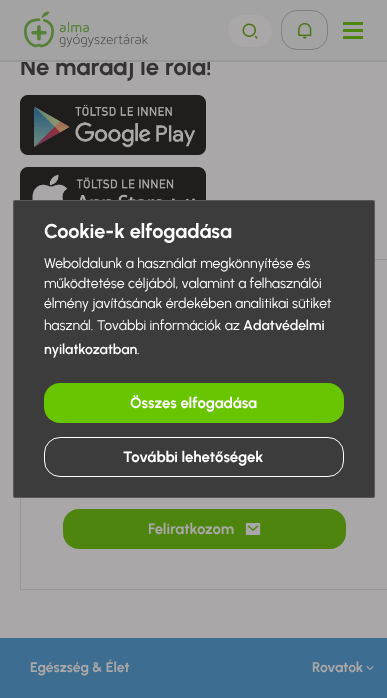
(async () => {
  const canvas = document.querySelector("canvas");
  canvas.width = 387;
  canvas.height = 698;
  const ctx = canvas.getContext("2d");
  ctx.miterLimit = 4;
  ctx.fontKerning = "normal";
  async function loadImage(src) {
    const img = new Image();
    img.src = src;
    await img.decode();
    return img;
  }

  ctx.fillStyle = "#a9a7a7";
  ctx.fillRect(0, 0, 387, 698);
  ctx.drawImage(await loadImage("img/4.png"), 20, 95, 186, 60);
  ctx.drawImage(await loadImage("img/5.png"), 20, 167, 186, 33);
  ctx.strokeStyle = "#979696";
  ctx.strokeRect(20.5, 259.5, 346, 330);
  ctx.fillStyle = "#4e850e";
  ctx.beginPath();
  ctx.roundRect(63, 509, 283, 40, 16);
  ctx.fill();
  ctx.drawImage(await loadImage("img/6.png"), 245, 523, 16, 12);
  for (const [x, y, w, h, color] of [
    [366, 260, 1, 329, "#a9a7a7"],
    [375, 259, 12, 1, "#979696"],
    [366, 589, 21, 1, "#979696"],
  ]) {
    ctx.fillStyle = color;
    ctx.fillRect(x, y, w, h);
  }
  ctx.fillStyle = "#3c3c3c";
  ctx.beginPath();
  ctx.roundRect(13, 200, 362, 298, 2);
  ctx.fill();
  ctx.beginPath();
  ctx.roundRect(13.5, 200.5, 361, 297, 1.5);
  ctx.strokeStyle = "rgba(255, 255, 255, 0.15)";
  ctx.stroke();
  ctx.fillStyle = "#68c500";
  ctx.beginPath();
  ctx.roundRect(44, 383, 300, 40, 16);
  ctx.fill();
  ctx.beginPath();
  ctx.roundRect(44.5, 437.5, 299, 39, 15.5);
  ctx.strokeStyle = "#ffffff";
  ctx.stroke();
  ctx.fillStyle = "#3d6d91";
  ctx.fillRect(0, 638, 387, 60);
  ctx.drawImage(await loadImage("img/7.png"), 366, 665, 8, 6);
  ctx.font = "bold 24px Urbanist";
  ctx.fillStyle = "#343232";
  ctx.fillText("Ne maradj le róla!", 20, 75);
  ctx.fillStyle = "#a4a3a3";
  ctx.fillRect(0, 0, 387, 60);
  ctx.drawImage(await loadImage("img/1.png"), 24, 11, 124, 37);
  ctx.beginPath();
  ctx.roundRect(281.5, 10.5, 46, 39, 15.5);
  ctx.strokeStyle = "#7f7f80";
  ctx.stroke();
  ctx.drawImage(await loadImage("img/3.png"), 298, 23, 14, 16);
  for (const [x, y, w, h, color] of [
    [343, 36, 20, 3, "#4e850e"],
    [343, 29, 20, 3, "#4e850e"],
    [343, 22, 20, 3, "#4e850e"],
  ]) {
    ctx.fillStyle = color;
    ctx.fillRect(x, y, w, h);
  }
  ctx.fillStyle = "#a9a7a7";
  ctx.beginPath();
  ctx.roundRect(228, 15, 44, 32, 16);
  ctx.fill();
  ctx.drawImage(await loadImage("img/2.png"), 242, 23, 16, 16);
  ctx.fillStyle = "#989797";
  ctx.fillRect(0, 60, 387, 2);
  ctx.font = "bold 15px Urbanist";
  ctx.fillStyle = "#a9a7a7";
  ctx.fillText("Feliratkozom", 148, 534);
  ctx.font = "bold 20px Urbanist";
  ctx.fillStyle = "#ffffff";
  ctx.fillText("Cookie-k elfogadása", 44, 238);
  ctx.font = "14px Urbanist";
  for (const [text, x, y] of [
    ["Weboldalunk a használat megkönnyítése és", 44, 268],
    ["működtetése céljából, valamint a felhasználói", 44, 288],
    ["élmény javításának érdekében analitikai sütiket", 44, 308],
    ["használ. További információk az", 44, 330],
  ]) {
    ctx.fillText(text, x, y);
  }
  ctx.font = "600 14px Urbanist";
  ctx.fillText("Adatvédelmi", 243, 330);
  ctx.fillText("nyilatkozatban", 44, 354);
  ctx.font = "14px Urbanist";
  ctx.fillText(".", 137, 354);
  ctx.font = "bold 15px Urbanist";
  ctx.fillText("Összes elfogadása", 130, 408);
  ctx.fillText("További lehetőségek", 123, 462);
  ctx.font = "bold 14px Urbanist";
  ctx.fillStyle = "#a9a7a7";
  ctx.fillText("Egészség & Élet", 30, 672);
  ctx.fillText("Rovatok", 312, 672);
})();
